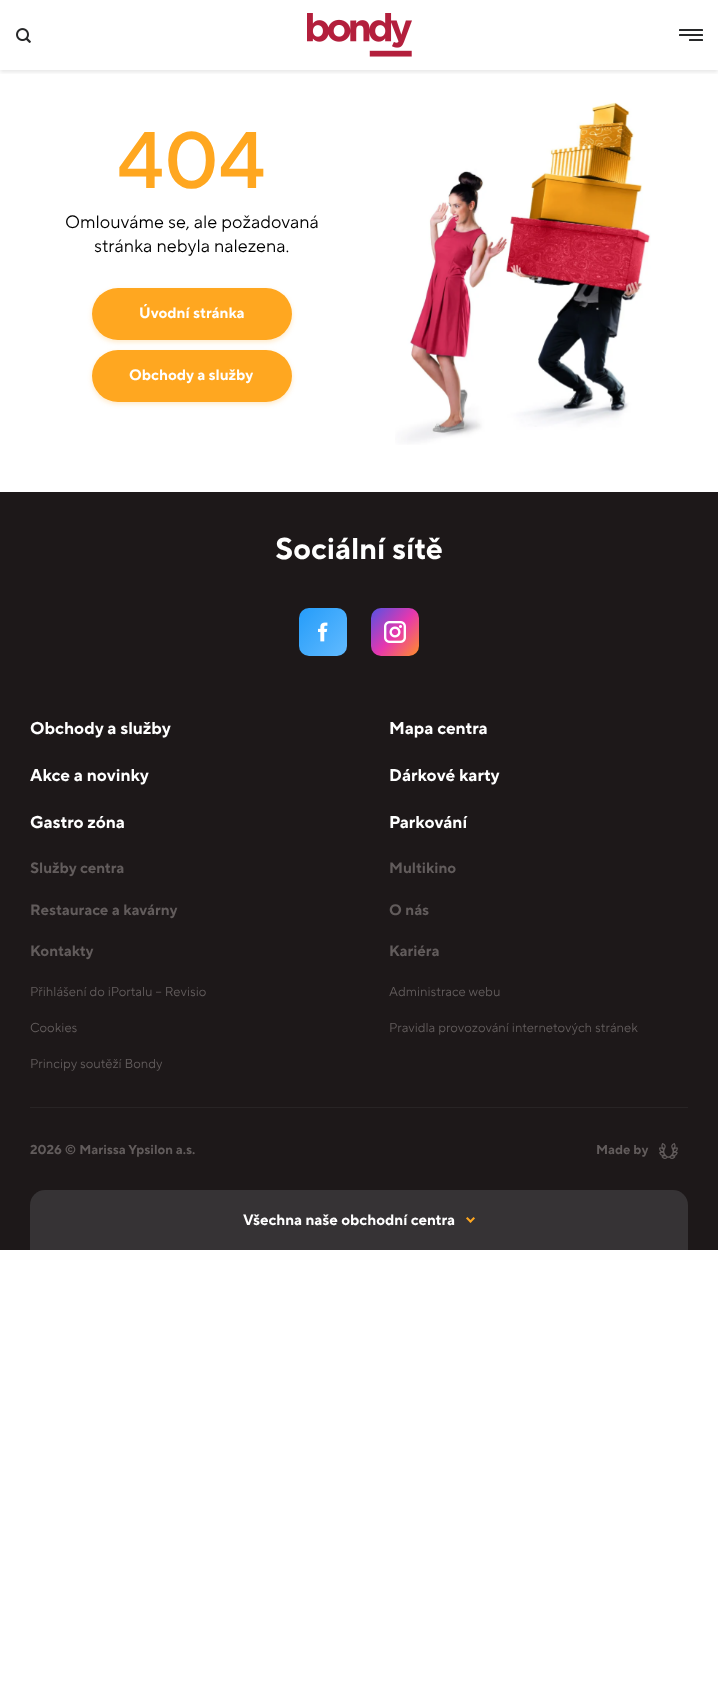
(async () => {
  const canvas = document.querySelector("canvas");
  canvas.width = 718;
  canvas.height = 1687;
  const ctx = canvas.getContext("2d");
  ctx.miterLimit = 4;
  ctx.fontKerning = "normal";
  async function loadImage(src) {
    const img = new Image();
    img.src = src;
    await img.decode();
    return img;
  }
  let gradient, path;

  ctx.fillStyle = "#ffffff";
  ctx.fillRect(0, 0, 718, 1687);
  ctx.save();
  ctx.beginPath();
  ctx.rect(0, 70, 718, 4);
  ctx.clip();
  ctx.fillStyle = "rgba(0, 0, 0, 0.1)";
  ctx.filter = "blur(2px)";
  ctx.beginPath();
  ctx.rect(0, 2, 718, 70);
  ctx.fill();
  ctx.filter = "none";
  ctx.restore();
  ctx.drawImage(await loadImage("img/1.png"), 16, 28, 15, 15);
  ctx.drawImage(await loadImage("img/2.png"), 307, 13, 105, 44);
  ctx.fillStyle = "#272829";
  ctx.beginPath();
  ctx.roundRect(679, 29, 24, 2, 0.5);
  ctx.fill();
  ctx.beginPath();
  ctx.roundRect(679, 34, 24, 2, 0.5);
  ctx.fill();
  ctx.beginPath();
  ctx.roundRect(689, 39, 14, 2, 0.5);
  ctx.fill();
  ctx.fillStyle = "#ffa720";
  ctx.beginPath();
  ctx.roundRect(92, 288, 200, 52, 26);
  ctx.fill();
  ctx.save();
  path = new Path2D("M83 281H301V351H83ZM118 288H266C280.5 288 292 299.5 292 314C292 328.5 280.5 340 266 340H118C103.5 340 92 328.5 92 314C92 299.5 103.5 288 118 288Z");
  ctx.clip(path, "evenodd");
  ctx.fillStyle = "rgba(255, 167, 32, 0.25)";
  ctx.filter = "blur(2.5px)";
  ctx.beginPath();
  ctx.roundRect(92, 290, 200, 52, 26);
  ctx.fill();
  ctx.filter = "none";
  ctx.restore();
  ctx.beginPath();
  ctx.roundRect(92, 350, 200, 52, 26);
  ctx.fill();
  ctx.save();
  path = new Path2D("M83 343H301V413H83ZM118 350H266C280.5 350 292 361.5 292 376C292 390.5 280.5 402 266 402H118C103.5 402 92 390.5 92 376C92 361.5 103.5 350 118 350Z");
  ctx.clip(path, "evenodd");
  ctx.fillStyle = "rgba(255, 167, 32, 0.25)";
  ctx.filter = "blur(2.5px)";
  ctx.beginPath();
  ctx.roundRect(92, 352, 200, 52, 26);
  ctx.fill();
  ctx.filter = "none";
  ctx.restore();
  ctx.drawImage(await loadImage("img/3.png"), 395, 102, 256, 343);
  ctx.fillStyle = "#1d1819";
  ctx.fillRect(0, 492, 718, 758);
  gradient = ctx.createLinearGradient(298, 610, 348, 654);
  gradient.addColorStop(0.08, "#2a9ffa");
  gradient.addColorStop(1, "#61baff");
  ctx.fillStyle = gradient;
  ctx.beginPath();
  ctx.roundRect(299, 608, 48, 48, 10);
  ctx.fill();
  ctx.drawImage(await loadImage("img/4.png"), 318, 622, 10, 20);
  gradient = ctx.createLinearGradient(370, 610, 420, 654);
  gradient.addColorStop(0.05, "#644fde");
  gradient.addColorStop(0.52, "#e737ae");
  gradient.addColorStop(1, "#ff8d2b");
  ctx.fillStyle = gradient;
  ctx.beginPath();
  ctx.roundRect(371, 608, 48, 48, 10);
  ctx.fill();
  ctx.drawImage(await loadImage("img/5.png"), 384, 621, 22, 22);
  ctx.fillStyle = "#282425";
  ctx.fillRect(30, 1107, 658, 1);
  ctx.drawImage(await loadImage("img/6.png"), 659, 1143, 19, 16);
  ctx.fillStyle = "#363335";
  ctx.beginPath();
  ctx.roundRect(30, 1190, 658, 60, [15, 15, 0, 0]);
  ctx.fill();
  ctx.drawImage(await loadImage("img/7.png"), 466, 1217, 9, 6);
  ctx.font = "500 80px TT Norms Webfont";
  ctx.fillStyle = "#ffa720";
  ctx.fillText("404", 117, 188);
  ctx.font = "18px TT Norms Webfont";
  ctx.fillStyle = "#000000";
  ctx.fillText("Omlouváme se, ale požadovaná", 65, 228);
  ctx.fillText("stránka nebyla nalezena.", 94, 252);
  ctx.font = "bold 15px TT Norms Webfont";
  ctx.fillStyle = "#ffffff";
  ctx.fillText("Úvodní stránka", 139, 318);
  ctx.fillText("Obchody a služby", 129, 380);
  ctx.font = "bold 30px TT Norms Webfont";
  ctx.fillText("Sociální sítě", 275, 559);
  ctx.font = "bold 17px TT Norms Webfont";
  for (const [text, x, y] of [
    ["Obchody a služby", 30, 734],
    ["Mapa centra", 389, 734],
    ["Akce a novinky", 30, 781],
    ["Dárkové karty", 389, 781],
    ["Gastro zóna", 30, 828],
    ["Parkování", 389, 828],
  ]) {
    ctx.fillText(text, x, y);
  }
  ctx.font = "bold 15px TT Norms Webfont";
  ctx.fillStyle = "#625c5c";
  for (const [text, x, y] of [
    ["Služby centra", 30, 873],
    ["Multikino", 389, 873],
    ["Restaurace a kavárny", 30, 915],
    ["O nás", 389, 915],
    ["Kontakty", 30, 956],
    ["Kariéra", 389, 956],
  ]) {
    ctx.fillText(text, x, y);
  }
  ctx.font = "13px TT Norms Webfont";
  for (const [text, x, y] of [
    ["Přihlášení do iPortalu – Revisio", 30, 996],
    ["Administrace webu", 389, 996],
    ["Cookies", 30, 1032],
    ["Pravidla provozování internetových stránek", 389, 1032],
    ["Principy soutěží Bondy", 30, 1068],
  ]) {
    ctx.fillText(text, x, y);
  }
  ctx.font = "bold 13px TT Norms Webfont";
  ctx.fillText("2026 © Marissa Ypsilon a.s.", 30, 1154);
  ctx.fillText("Made by", 596, 1154);
  ctx.font = "bold 15px TT Norms Webfont";
  ctx.fillStyle = "#ffffff";
  ctx.fillText("Všechna naše obchodní centra", 243, 1225);
})();
